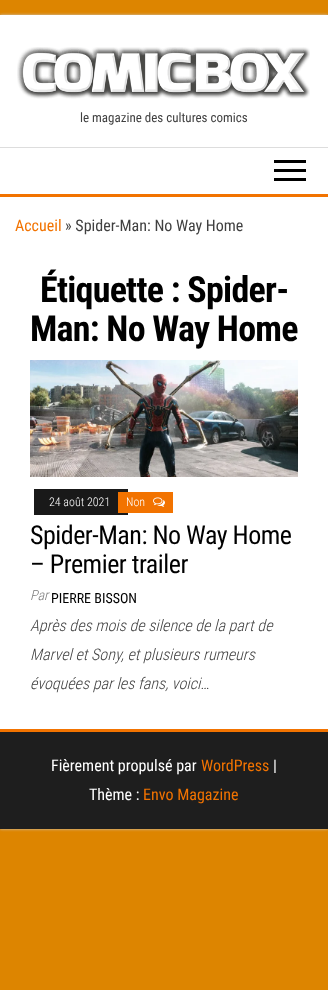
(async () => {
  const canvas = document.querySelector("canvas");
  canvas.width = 328;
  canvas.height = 990;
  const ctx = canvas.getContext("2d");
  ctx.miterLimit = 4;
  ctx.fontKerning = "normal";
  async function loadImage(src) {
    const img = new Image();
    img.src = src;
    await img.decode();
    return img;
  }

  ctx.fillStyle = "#dd8500";
  ctx.fillRect(0, 0, 328, 990);
  ctx.fillStyle = "#cacaca";
  ctx.filter = "blur(1.5px)";
  ctx.beginPath();
  ctx.rect(0, 15, 328, 814);
  ctx.fill();
  ctx.filter = "none";
  ctx.fillStyle = "#ffffff";
  ctx.fillRect(0, 15, 328, 132);
  ctx.drawImage(await loadImage("img/1.png"), 17, 47, 293, 52);
  for (const [x, y, w, h, color] of [
    [0, 148, 328, 46, "#ffffff"],
    [0, 147, 328, 1, "#dddddd"],
    [0, 194, 328, 3, "#f27300"],
    [274, 160, 32, 3, "#000000"],
    [274, 169, 32, 3, "#000000"],
    [274, 178, 32, 3, "#000000"],
    [0, 197, 328, 532, "#ffffff"],
  ]) {
    ctx.fillStyle = color;
    ctx.fillRect(x, y, w, h);
  }
  ctx.drawImage(await loadImage("img/2.png"), 30, 360, 268, 117);
  ctx.fillStyle = "#191919";
  ctx.fillRect(34, 489, 94, 26);
  ctx.fillStyle = "#f27300";
  ctx.fillRect(118, 492, 55, 21);
  ctx.drawImage(await loadImage("img/3.png"), 153, 497, 12, 10);
  ctx.fillStyle = "#1e1e1e";
  ctx.fillRect(0, 732, 328, 97);
  ctx.fillStyle = "#f27300";
  ctx.fillRect(0, 729, 328, 3);
  ctx.font = "13px Roboto Condensed";
  ctx.fillStyle = "#404040";
  ctx.fillText("le magazine des cultures comics", 80, 122);
  ctx.font = "16px Roboto Condensed";
  ctx.fillStyle = "#f27300";
  ctx.fillText("Accueil", 15, 231);
  ctx.fillStyle = "#404040";
  ctx.fillText("» Spider-Man: No Way Home", 65, 231);
  ctx.letterSpacing = "-0.75px";
  ctx.font = "bold 36px Roboto Condensed";
  ctx.fillStyle = "#000000";
  ctx.fillText("Étiquette : Spider-", 40, 302);
  ctx.fillText("Man: No Way Home", 30, 341);
  ctx.letterSpacing = "0px";
  ctx.font = "300 12px Roboto Condensed";
  ctx.fillStyle = "#ffffff";
  ctx.fillText("24 août 2021", 49, 506);
  ctx.fillText("Non", 126, 506);
  ctx.letterSpacing = "-0.5px";
  ctx.font = "26px Roboto Condensed";
  ctx.fillStyle = "#000000";
  ctx.fillText("Spider-Man: No Way Home", 30, 544);
  ctx.fillText("– Premier trailer", 30, 573);
  ctx.letterSpacing = "0px";
  ctx.font = "italic 300 14px Roboto Condensed";
  ctx.fillStyle = "#797979";
  ctx.fillText("Par", 30, 600);
  ctx.font = "14px Roboto Condensed";
  ctx.fillStyle = "#000000";
  ctx.fillText("PIERRE BISSON", 51, 603);
  ctx.font = "italic 300 16px Roboto Condensed";
  ctx.fillStyle = "#404040";
  for (const [text, x, y] of [
    ["Après des mois de silence de la part de", 30, 631],
    ["Marvel et Sony, et plusieurs rumeurs", 30, 660],
    ["évoquées par les fans, voici…", 30, 689],
  ]) {
    ctx.fillText(text, x, y);
  }
  ctx.font = "16px Roboto Condensed";
  ctx.fillStyle = "#ffffff";
  ctx.fillText("Fièrement propulsé par", 51, 771);
  ctx.fillStyle = "#f27300";
  ctx.fillText("WordPress", 201, 771);
  ctx.fillStyle = "#ffffff";
  ctx.fillText("|", 273, 771);
  ctx.fillText("Thème :", 89, 800);
  ctx.fillStyle = "#f27300";
  ctx.fillText("Envo Magazine", 143, 800);
})();
